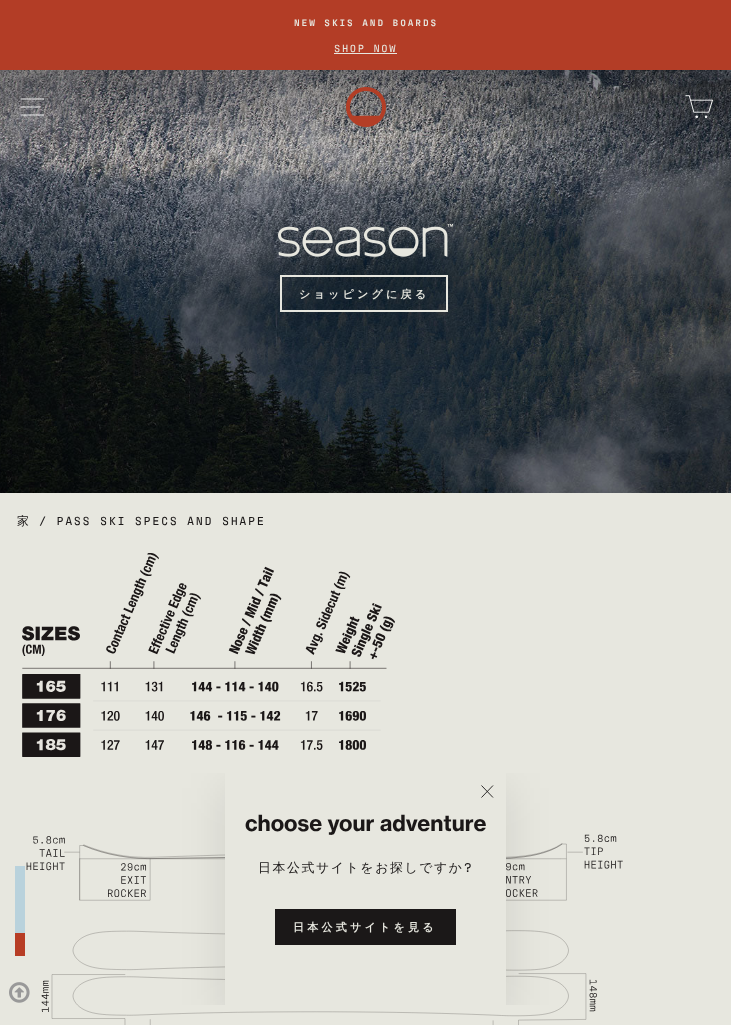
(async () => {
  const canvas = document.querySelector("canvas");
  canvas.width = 731;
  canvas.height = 1025;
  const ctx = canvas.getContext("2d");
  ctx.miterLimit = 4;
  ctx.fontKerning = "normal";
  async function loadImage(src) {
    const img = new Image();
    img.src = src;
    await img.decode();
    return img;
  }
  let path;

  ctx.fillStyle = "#e7e7df";
  ctx.fillRect(0, 0, 731, 1025);
  ctx.fillStyle = "#b33d26";
  ctx.fillRect(0, 0, 731, 70);
  ctx.fillStyle = "#e7e7df";
  ctx.fillRect(334, 53, 63, 1);
  ctx.drawImage(await loadImage("img/3.png"), 0, 70, 731, 423);
  path = new Path2D("M20.5 99H44M20.5 107H40.5M20.5 115H44");
  ctx.strokeStyle = "#ffffff";
  ctx.lineWidth = 0.9;
  ctx.stroke(path);
  ctx.drawImage(await loadImage("img/1.png"), 346, 87, 40, 40);
  ctx.drawImage(await loadImage("img/2.png"), 685, 95, 28, 24);
  ctx.drawImage(await loadImage("img/4.png"), 278, 224, 175, 33);
  ctx.strokeStyle = "#e7e7df";
  ctx.lineWidth = 2;
  ctx.strokeRect(281, 276, 166, 35);
  ctx.drawImage(await loadImage("img/5.png"), 22, 553, 373, 204);
  ctx.drawImage(await loadImage("img/6.png"), 26, 834, 597, 191);
  ctx.save();
  ctx.beginPath();
  ctx.rect(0, 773, 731, 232);
  ctx.clip();
  ctx.fillStyle = "rgba(0, 0, 0, 0.1)";
  ctx.filter = "blur(22.5px)";
  ctx.beginPath();
  ctx.rect(225, 788, 281, 232);
  ctx.fill();
  ctx.filter = "none";
  ctx.restore();
  ctx.fillRect(225, 773, 281, 232);
  path = new Path2D("M481.5 785.5L493 797.5M493 785.5L481.5 797.5");
  ctx.strokeStyle = "#1b1818";
  ctx.lineWidth = 0.9;
  ctx.stroke(path);
  for (const [x, y, w, h, color] of [
    [275, 909, 181, 36, "#1b1818"],
    [15, 866, 10, 67, "#b9d2dc"],
    [15, 933, 10, 23, "#b73d25"],
  ]) {
    ctx.fillStyle = color;
    ctx.fillRect(x, y, w, h);
  }
  ctx.drawImage(await loadImage("img/7.png"), 9, 982, 21, 21);
  ctx.letterSpacing = "1.9px";
  ctx.font = "600 9.5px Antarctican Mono";
  ctx.fillStyle = "#e7e7df";
  ctx.fillText("NEW SKIS AND BOARDS", 294, 26);
  ctx.letterSpacing = "1.6px";
  ctx.font = "500 10.5px Antarctican Mono";
  ctx.fillText("SHOP NOW", 334, 52);
  ctx.letterSpacing = "3.25px";
  ctx.font = "bold 11px WenQuanYi Zen Hei";
  ctx.fillText("ショッピングに戻る", 299, 298);
  ctx.letterSpacing = "1.6px";
  ctx.font = "500 11.9px WenQuanYi Zen Hei";
  ctx.fillStyle = "#1b1818";
  ctx.fillText("家", 17, 525);
  ctx.font = "500 11.9px Antarctican Mono";
  ctx.fillText("/ PASS SKI SPECS AND SHAPE", 39, 525);
  ctx.letterSpacing = "0px";
  ctx.font = "bold 21.75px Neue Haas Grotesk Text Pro";
  ctx.fillText("choose your adventure", 245, 831);
  ctx.letterSpacing = "1.6px";
  ctx.font = "500 12.9px WenQuanYi Zen Hei";
  ctx.fillText("日本公式サイトをお探しですか", 258, 872);
  ctx.font = "500 12.9px Antarctican Mono";
  ctx.fillText("?", 464, 872);
  ctx.letterSpacing = "3.25px";
  ctx.font = "bold 11px WenQuanYi Zen Hei";
  ctx.fillStyle = "#e7e7df";
  ctx.fillText("日本公式サイトを見る", 293, 931);
})();
